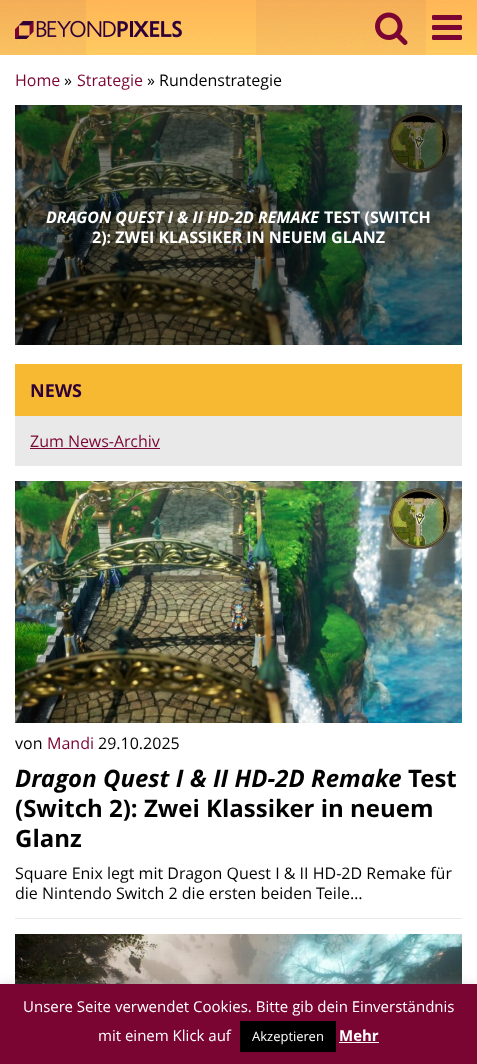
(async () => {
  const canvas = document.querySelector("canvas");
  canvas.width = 477;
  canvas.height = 1064;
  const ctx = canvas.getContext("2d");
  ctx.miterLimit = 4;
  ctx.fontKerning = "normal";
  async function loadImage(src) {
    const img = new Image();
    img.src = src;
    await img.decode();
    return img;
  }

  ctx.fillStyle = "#ffffff";
  ctx.fillRect(0, 0, 477, 1064);
  ctx.drawImage(await loadImage("img/1.png"), 0, 0, 477, 55);
  ctx.drawImage(await loadImage("img/2.png"), 15, 20, 167, 19);
  ctx.drawImage(await loadImage("img/3.png"), 375, 12, 33, 33);
  ctx.drawImage(await loadImage("img/4.png"), 432, 15, 30, 25);
  ctx.drawImage(await loadImage("img/5.png"), 15, 105, 447, 240);
  for (const [x, y, w, h, color] of [
    [15, 416, 447, 50, "#e9e9e9"],
    [15, 364, 447, 52, "#f7b932"],
    [30, 448, 130, 1, "#7b0532"],
  ]) {
    ctx.fillStyle = color;
    ctx.fillRect(x, y, w, h);
  }
  ctx.drawImage(await loadImage("img/6.png"), 15, 481, 447, 242);
  ctx.fillStyle = "#e9e9e9";
  ctx.fillRect(15, 918, 447, 1);
  ctx.drawImage(await loadImage("img/7.png"), 15, 934, 447, 50);
  ctx.fillStyle = "rgba(172, 171, 171, 0.3)";
  ctx.filter = "blur(5px)";
  ctx.beginPath();
  ctx.rect(0, 983, 477, 80);
  ctx.fill();
  ctx.filter = "none";
  for (const [x, y, w, h, color] of [
    [0, 984, 477, 80, "#7b0532"],
    [240, 1021, 96, 31, "#000000"],
    [339, 1042, 40, 1, "#ffffff"],
  ]) {
    ctx.fillStyle = color;
    ctx.fillRect(x, y, w, h);
  }
  ctx.font = "16px Open Sans";
  ctx.fillStyle = "#7b0532";
  ctx.fillText("Home", 15, 86);
  ctx.fillStyle = "#000000";
  ctx.fillText("»", 64, 86);
  ctx.fillStyle = "#7b0532";
  ctx.fillText("Strategie", 77, 86);
  ctx.fillStyle = "#000000";
  ctx.fillText("» Rundenstrategie", 147, 86);
  ctx.font = "italic bold 16px Open Sans";
  ctx.fillStyle = "#ffffff";
  ctx.fillText("DRAGON QUEST I & II HD-2D REMAKE", 46, 223);
  ctx.font = "bold 16px Open Sans";
  ctx.fillText("TEST (SWITCH", 324, 223);
  ctx.fillText("2): ZWEI KLASSIKER IN NEUEM GLANZ", 92, 243);
  ctx.font = "bold 18px Open Sans";
  ctx.fillStyle = "#2f0037";
  ctx.fillText("NEWS", 30, 397);
  ctx.font = "16px Open Sans";
  ctx.fillStyle = "#7b0532";
  ctx.fillText("Zum News-Archiv", 30, 447);
  ctx.fillStyle = "#000000";
  ctx.fillText("von", 15, 749);
  ctx.fillStyle = "#7b0532";
  ctx.fillText("Mandi", 47, 749);
  ctx.fillStyle = "#000000";
  ctx.fillText("29.10.2025", 98, 749);
  ctx.font = "italic bold 24px Open Sans";
  ctx.fillText("Dragon Quest I & II HD-2D Remake", 15, 787);
  ctx.font = "bold 24px Open Sans";
  for (const [text, x, y] of [
    ["Test", 408, 787],
    ["(Switch 2): Zwei Klassiker in neuem", 15, 817],
    ["Glanz", 15, 847],
  ]) {
    ctx.fillText(text, x, y);
  }
  ctx.font = "16px Open Sans";
  ctx.fillText("Square Enix legt mit Dragon Quest I & II HD-2D Remake für", 15, 879);
  ctx.fillText("die Nintendo Switch 2 die ersten beiden Teile…", 15, 899);
  ctx.font = "15px Open Sans";
  ctx.fillStyle = "#ffffff";
  ctx.fillText("Unsere Seite verwendet Cookies. Bitte gib dein Einverständnis", 23, 1012);
  ctx.fillText("mit einem Klick auf", 98, 1041);
  ctx.font = "13px Open Sans";
  ctx.fillText("Akzeptieren", 252, 1041);
  ctx.font = "bold 15px Open Sans";
  ctx.fillText("Mehr", 339, 1041);
})();
